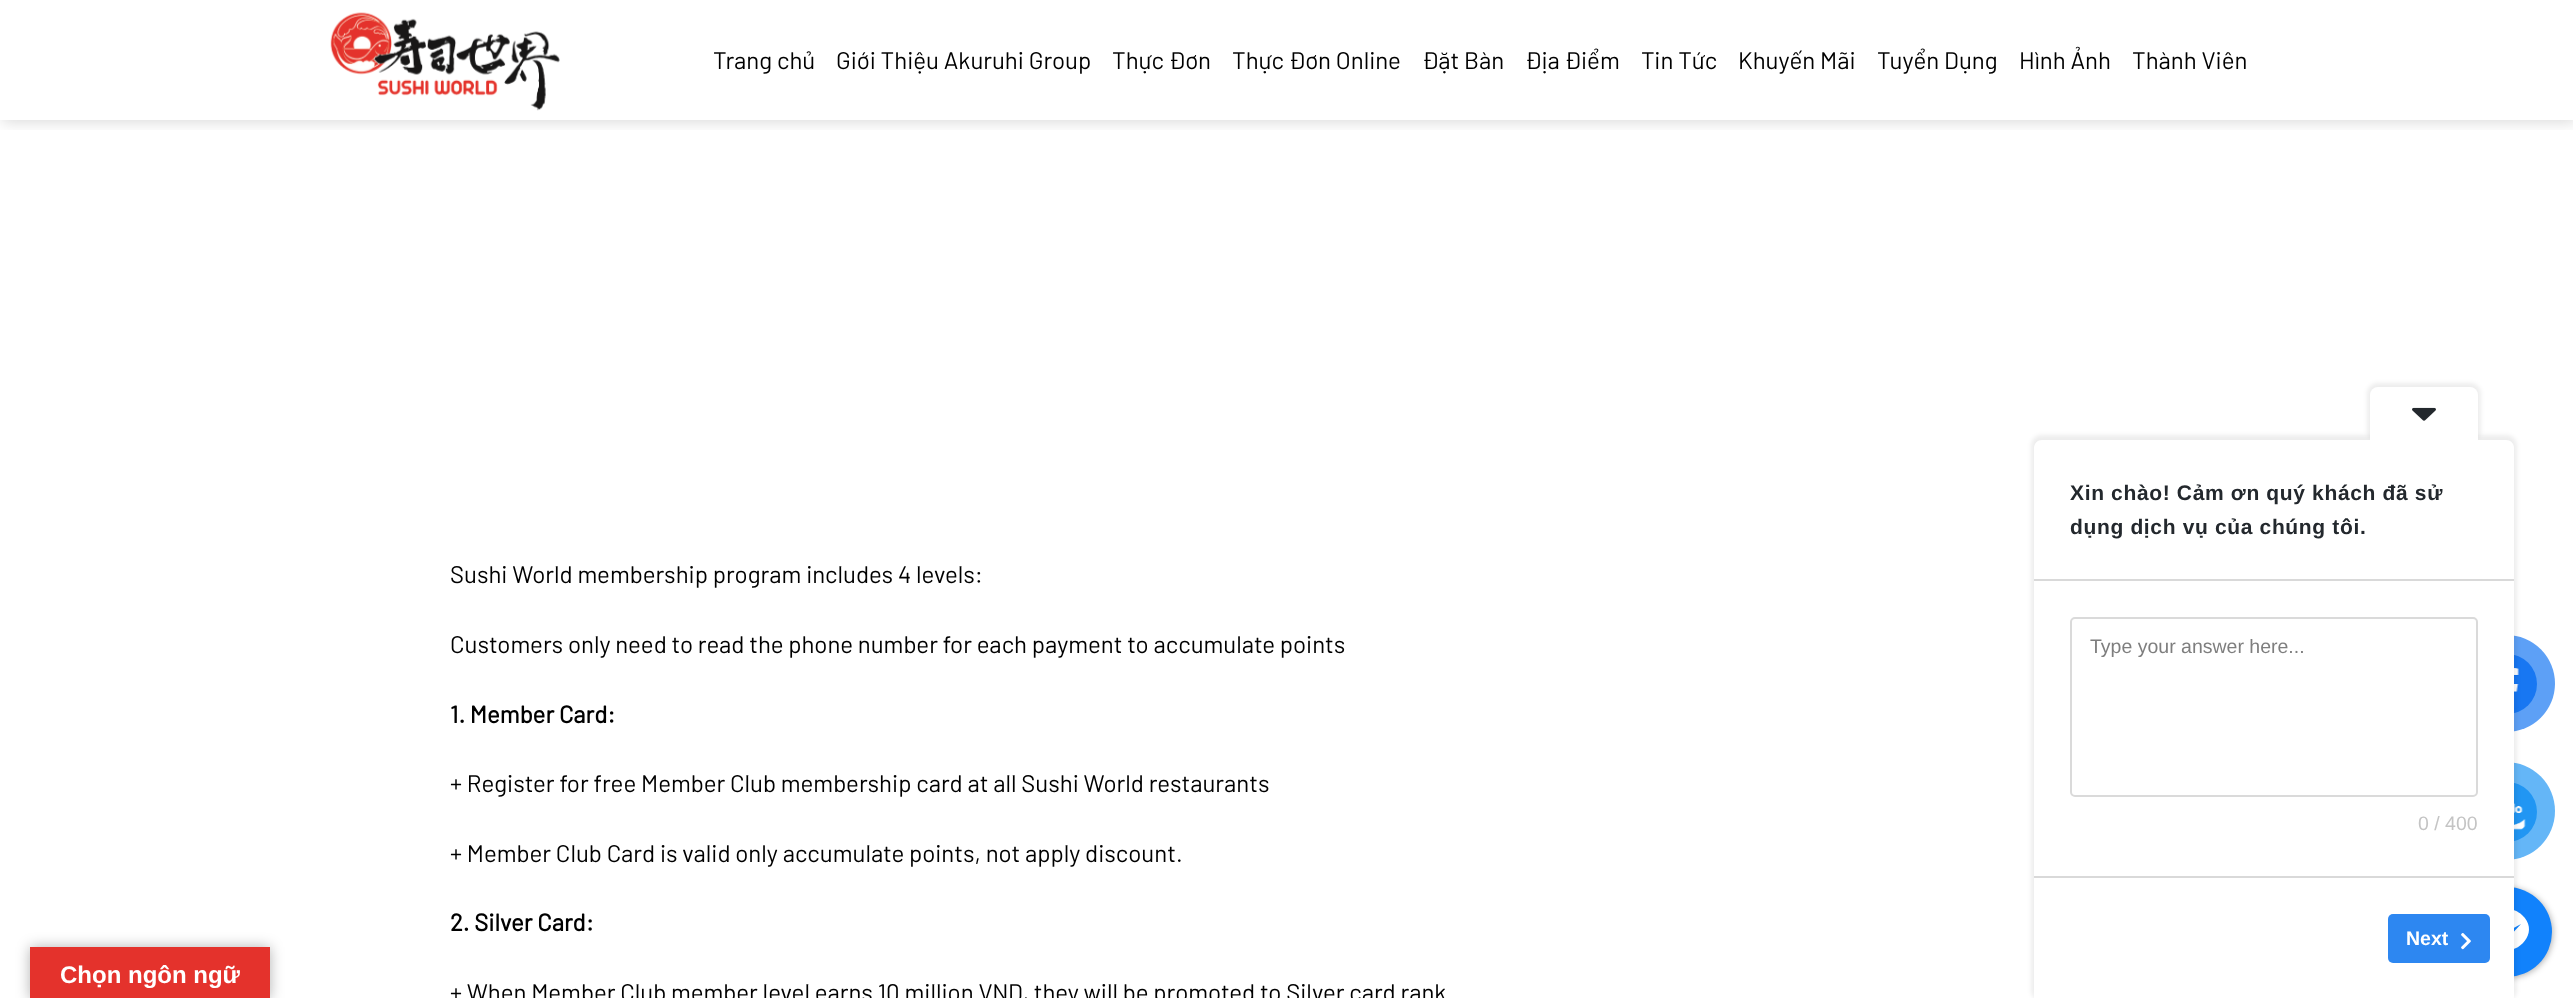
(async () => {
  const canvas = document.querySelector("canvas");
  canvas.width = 2573;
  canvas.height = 998;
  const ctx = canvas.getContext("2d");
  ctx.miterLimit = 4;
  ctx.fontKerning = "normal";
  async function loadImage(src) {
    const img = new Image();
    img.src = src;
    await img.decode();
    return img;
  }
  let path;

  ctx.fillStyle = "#ffffff";
  ctx.fillRect(0, 0, 2573, 998);
  ctx.save();
  ctx.beginPath();
  ctx.rect(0, 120, 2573, 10);
  ctx.clip();
  ctx.fillStyle = "rgba(0, 0, 0, 0.15)";
  ctx.filter = "blur(7.5px)";
  ctx.beginPath();
  ctx.rect(2, 2, 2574, 120);
  ctx.fill();
  ctx.filter = "none";
  ctx.restore();
  ctx.drawImage(await loadImage("img/1.png"), 330, 12, 230, 99);
  ctx.fillStyle = "#5da0f6";
  ctx.beginPath();
  ctx.roundRect(2457, 635, 98, 97, 48.5);
  ctx.fill();
  ctx.fillStyle = "#1877f2";
  ctx.beginPath();
  ctx.arc(2507, 684, 30, 0, Math.PI * 2);
  ctx.fill();
  ctx.drawImage(await loadImage("img/4.png"), 2514, 668, 5, 41);
  ctx.fillStyle = "#64b6f7";
  ctx.beginPath();
  ctx.arc(2506, 811, 49, 0, Math.PI * 2);
  ctx.fill();
  ctx.fillStyle = "#2196f3";
  ctx.beginPath();
  ctx.arc(2507, 812, 30, 0, Math.PI * 2);
  ctx.fill();
  ctx.drawImage(await loadImage("img/5.png"), 2514, 803, 12, 27);
  ctx.fillStyle = "rgba(0, 0, 0, 0.3)";
  ctx.filter = "blur(3px)";
  ctx.beginPath();
  ctx.roundRect(2463, 888, 90, 90, 45);
  ctx.fill();
  ctx.filter = "none";
  ctx.fillStyle = "#1182fc";
  ctx.beginPath();
  ctx.arc(2507, 932, 45, 0, Math.PI * 2);
  ctx.fill();
  ctx.fillStyle = "#ffffff";
  path = new Path2D("M2507 909C2486 909 2476 934 2492 946V954L2500 950C2520 955 2540 931 2522 915C2518 911 2512 909 2507 909ZM2509 937L2503 931L2492 937L2504 924L2510 930L2521 924Z");
  ctx.fill(path);
  ctx.fillStyle = "rgba(0, 0, 0, 0.07)";
  ctx.filter = "blur(2px)";
  ctx.beginPath();
  ctx.roundRect(2031, 435, 486, 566, 11);
  ctx.fill();
  ctx.filter = "none";
  ctx.fillStyle = "#ffffff";
  path = new Path2D("M2042 440H2506C2510.5 440 2514 443.5 2514 448V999H2034V448C2034 443.5 2037.5 440 2042 440Z");
  ctx.fill(path);
  ctx.save();
  path = new Path2D("M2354 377H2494L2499.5 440H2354Z");
  ctx.clip(path);
  ctx.fillStyle = "rgba(0, 0, 0, 0.07)";
  ctx.filter = "blur(2px)";
  ctx.beginPath();
  ctx.roundRect(2367, 383, 114, 58, 11);
  ctx.fill();
  ctx.filter = "none";
  ctx.restore();
  ctx.beginPath();
  ctx.roundRect(2370, 387, 108, 53, [8, 8, 0, 0]);
  ctx.fill();
  ctx.drawImage(await loadImage("img/2.png"), 2412, 407, 24, 14);
  ctx.fillStyle = "#d9d9d9";
  ctx.fillRect(2034, 579, 480, 2);
  ctx.fillRect(2034, 876, 480, 2);
  ctx.beginPath();
  ctx.roundRect(2071, 618, 406, 178, 4);
  ctx.strokeStyle = "#dadada";
  ctx.lineWidth = 2;
  ctx.stroke();
  ctx.fillStyle = "#2d87f1";
  ctx.beginPath();
  ctx.roundRect(2388, 914, 102, 49, 5);
  ctx.fill();
  ctx.drawImage(await loadImage("img/3.png"), 2461, 933, 10, 17);
  ctx.fillStyle = "rgba(0, 0, 0, 0.3)";
  ctx.filter = "blur(7px)";
  ctx.beginPath();
  ctx.rect(30, 947, 240, 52);
  ctx.fill();
  ctx.filter = "none";
  ctx.fillStyle = "#e4322c";
  ctx.fillRect(30, 947, 240, 51);
  ctx.font = "24px Barlow";
  ctx.fillStyle = "#000000";
  for (const [text, x, y] of [
    ["Trang chủ", 713, 69],
    ["Giới Thiệu Akuruhi Group", 836, 69],
    ["Thực Đơn", 1112, 69],
    ["Thực Đơn Online", 1232, 69],
    ["Đặt Bàn", 1422, 69],
    ["Địa Điểm", 1525, 69],
    ["Tin Tức", 1641, 69],
    ["Khuyến Mãi", 1738, 69],
    ["Tuyển Dụng", 1877, 69],
    ["Hình Ảnh", 2019, 69],
    ["Thành Viên", 2132, 69],
    ["Sushi World membership program includes 4 levels:", 450, 583],
    ["Customers only need to read the phone number for each payment to accumulate points", 450, 653],
  ]) {
    ctx.fillText(text, x, y);
  }
  ctx.font = "bold 24px Barlow";
  ctx.fillText("1. Member Card:", 450, 723);
  ctx.font = "24px Barlow";
  ctx.fillText("+ Register for free Member Club membership card at all Sushi World restaurants", 450, 792);
  ctx.fillText("+ Member Club Card is valid only accumulate points, not apply discount.", 450, 862);
  ctx.font = "bold 24px Barlow";
  ctx.fillText("2. Silver Card:", 450, 931);
  ctx.font = "24px Barlow";
  ctx.fillText("+ When Member Club member level earns 10 million VND, they will be promoted to Silver card rank", 450, 1001);
  ctx.letterSpacing = "0.65px";
  ctx.font = "bold 21px Liberation Sans";
  ctx.fillStyle = "#23282d";
  ctx.fillText("Xin chào! Cảm ơn quý khách đã sử", 2070, 500);
  ctx.fillText("dụng dịch vụ của chúng tôi.", 2070, 534);
  ctx.letterSpacing = "0px";
  ctx.font = "19.5px Liberation Sans";
  ctx.fillStyle = "#7e7e7e";
  ctx.fillText("Type your answer here...", 2090, 653);
  ctx.fillStyle = "#c4c4c4";
  ctx.fillText("0 / 400", 2418, 830);
  ctx.font = "bold 19.5px Liberation Sans";
  ctx.fillStyle = "#ffffff";
  ctx.fillText("Next", 2406, 945);
  ctx.font = "bold 24px Liberation Sans";
  ctx.fillText("Chọn ngôn ngữ", 60, 983);
})();
